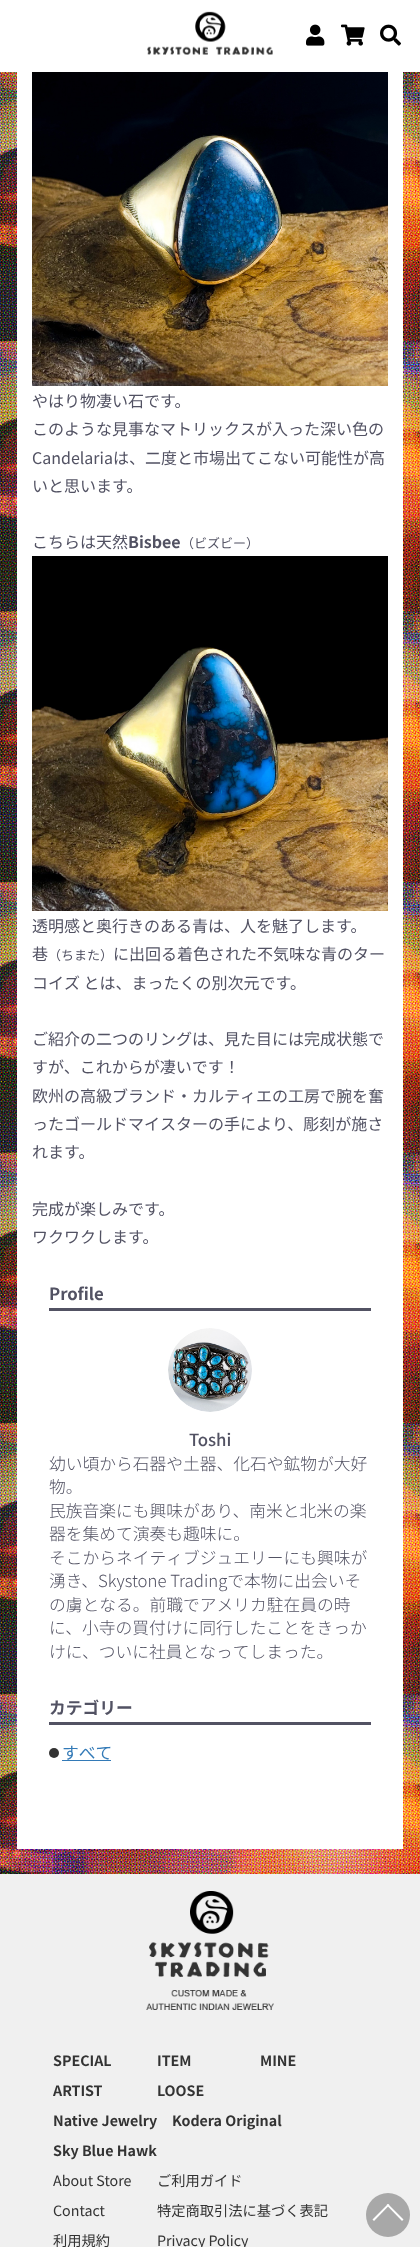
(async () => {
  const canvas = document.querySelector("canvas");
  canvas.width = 420;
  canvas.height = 2247;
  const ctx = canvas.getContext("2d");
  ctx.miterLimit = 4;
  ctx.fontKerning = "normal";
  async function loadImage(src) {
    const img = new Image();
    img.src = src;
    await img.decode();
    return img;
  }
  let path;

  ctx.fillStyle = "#ffffff";
  ctx.fillRect(0, 0, 420, 2247);
  ctx.drawImage(await loadImage("img/1.png"), 0, 72, 420, 1802);
  ctx.drawImage(await loadImage("img/2.png"), 147, 11, 126, 44);
  ctx.drawImage(await loadImage("img/3.png"), 306, 24, 19, 22);
  ctx.drawImage(await loadImage("img/4.png"), 341, 24, 24, 22);
  ctx.drawImage(await loadImage("img/5.png"), 380, 24, 21, 22);
  ctx.fillRect(17, 72, 386, 1777);
  ctx.drawImage(await loadImage("img/6.png"), 32, 72, 356, 314);
  ctx.drawImage(await loadImage("img/7.png"), 32, 556, 356, 355);
  ctx.fillStyle = "#525263";
  ctx.fillRect(49, 1308, 322, 3);
  ctx.drawImage(await loadImage("img/8.png"), 168, 1328, 84, 84);
  ctx.fillRect(49, 1722, 322, 3);
  ctx.fillStyle = "#333333";
  ctx.beginPath();
  ctx.arc(54, 1753, 5, 0, Math.PI * 2);
  ctx.fill();
  ctx.fillStyle = "#337ab7";
  ctx.fillRect(62, 1760, 49, 1);
  ctx.fillStyle = "#f0f0f0";
  ctx.fillRect(0, 1874, 420, 373);
  ctx.drawImage(await loadImage("img/9.png"), 146, 1891, 128, 119);
  ctx.fillStyle = "#a8a8a8";
  ctx.beginPath();
  ctx.arc(388, 2215, 22, 0, Math.PI * 2);
  ctx.fill();
  ctx.fillStyle = "#ffffff";
  path = new Path2D("M372.5 2219.5L388 2204L389.5 2205L374 2221Z");
  ctx.fill(path);
  path = new Path2D("M386.5 2205L388 2204L403.5 2219.5L402 2221Z");
  ctx.fill(path);
  ctx.font = "16px Noto Sans JP";
  ctx.fillStyle = "#525263";
  for (const [text, x, y] of [
    ["やはり物凄い石です。", 32, 407],
    ["このような見事なマトリックスが入った深い色の", 32, 435],
    ["Candelariaは、二度と市場出てこない可能性が高", 32, 464],
    ["いと思います。", 32, 492],
    ["こちらは天然", 32, 548],
  ]) {
    ctx.fillText(text, x, y);
  }
  ctx.font = "bold 16px Noto Sans JP";
  ctx.fillText("Bisbee", 128, 548);
  ctx.font = "13px Noto Sans JP";
  ctx.fillText("（ビズビー）", 181, 548);
  ctx.font = "16px Noto Sans JP";
  ctx.fillText("透明感と奥行きのある青は、人を魅了します。", 32, 932);
  ctx.fillText("巷", 32, 960);
  ctx.font = "13px Noto Sans JP";
  ctx.fillText("（ちまた）", 48, 960);
  ctx.font = "16px Noto Sans JP";
  for (const [text, x, y] of [
    ["に出回る着色された不気味な青のター", 113, 960],
    ["コイズ とは、まったくの別次元です。", 32, 989],
    ["ご紹介の二つのリングは、見た目には完成状態で", 32, 1045],
    ["すが、これからが凄いです！", 32, 1073],
    ["欧州の高級ブランド・カルティエの工房で腕を奮", 32, 1102],
    ["ったゴールドマイスターの手により、彫刻が施さ", 32, 1130],
    ["れます。", 32, 1158],
    ["完成が楽しみです。", 32, 1215],
    ["ワクワクします。", 32, 1243],
  ]) {
    ctx.fillText(text, x, y);
  }
  ctx.font = "bold 16.75px Noto Sans JP";
  ctx.fillText("Profile", 49, 1300);
  ctx.font = "500 16.75px Noto Sans JP";
  ctx.fillText("Toshi", 189, 1446);
  ctx.font = "300 16.75px Noto Sans JP";
  for (const [text, x, y] of [
    ["幼い頃から石器や土器、化石や鉱物が大好", 49, 1470],
    ["物。", 49, 1493],
    ["民族音楽にも興味があり、南米と北米の楽", 49, 1517],
    ["器を集めて演奏も趣味に。", 49, 1540],
    ["そこからネイティブジュエリーにも興味が", 49, 1564],
    ["湧き、Skystone Tradingで本物に出会いそ", 49, 1587],
    ["の虜となる。前職でアメリカ駐在員の時", 49, 1611],
    ["に、小寺の買付けに同行したことをきっか", 49, 1634],
    ["けに、ついに社員となってしまった。", 49, 1658],
  ]) {
    ctx.fillText(text, x, y);
  }
  ctx.font = "bold 16.75px Noto Sans JP";
  ctx.fillText("カテゴリー", 49, 1714);
  ctx.font = "16.75px Noto Sans JP";
  ctx.fillStyle = "#337ab7";
  ctx.fillText("すべて", 62, 1759);
  ctx.font = "bold 14.25px Noto Sans JP";
  ctx.fillStyle = "#333333";
  for (const [text, x, y] of [
    ["SPECIAL", 53, 2066],
    ["ITEM", 157, 2066],
    ["MINE", 260, 2066],
    ["ARTIST", 53, 2096],
    ["LOOSE", 157, 2096],
    ["Native Jewelry", 53, 2126],
    ["Kodera Original", 172, 2126],
    ["Sky Blue Hawk", 53, 2156],
  ]) {
    ctx.fillText(text, x, y);
  }
  ctx.font = "14.25px Noto Sans JP";
  for (const [text, x, y] of [
    ["About Store", 53, 2186],
    ["ご利用ガイド", 157, 2186],
    ["Contact", 53, 2216],
    ["特定商取引法に基づく表記", 157, 2216],
    ["利用規約", 53, 2246],
    ["Privacy Policy", 157, 2246],
  ]) {
    ctx.fillText(text, x, y);
  }
})();
